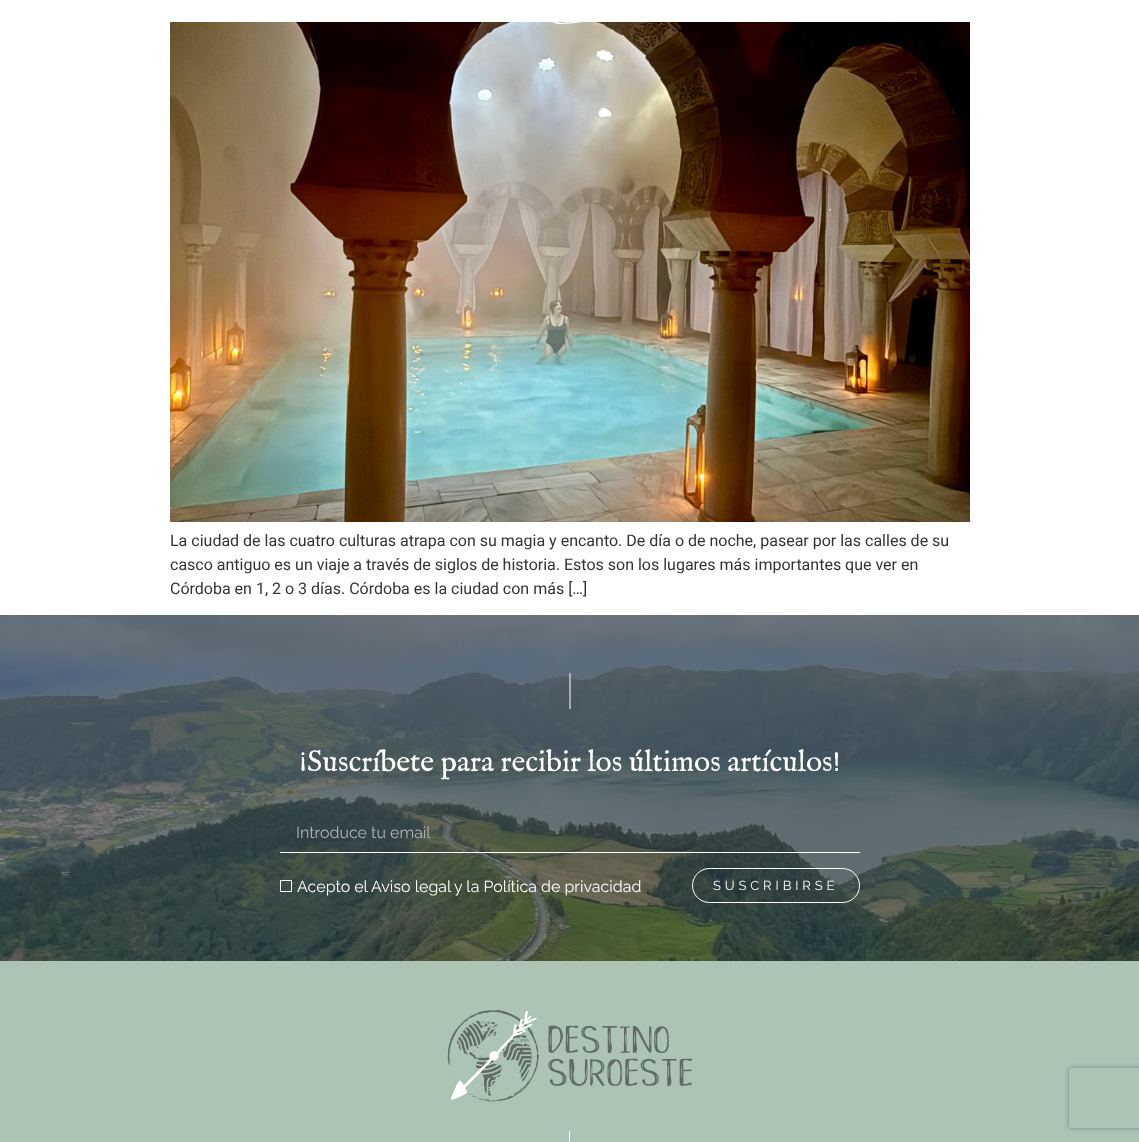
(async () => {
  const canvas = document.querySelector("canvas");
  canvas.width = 1139;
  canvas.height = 1142;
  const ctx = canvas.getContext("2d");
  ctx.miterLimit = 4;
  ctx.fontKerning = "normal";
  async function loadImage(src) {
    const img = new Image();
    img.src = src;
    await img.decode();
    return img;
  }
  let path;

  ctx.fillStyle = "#ffffff";
  ctx.fillRect(0, 0, 1139, 1142);
  ctx.drawImage(await loadImage("img/2.png"), 170, 22, 800, 500);
  ctx.drawImage(await loadImage("img/1.png"), 547, 22, 34, 2);
  ctx.drawImage(await loadImage("img/3.png"), 0, 615, 1139, 346);
  path = new Path2D("M570 709V673");
  ctx.strokeStyle = "#ffffff";
  ctx.stroke(path);
  ctx.fillRect(280, 852, 580, 1);
  ctx.strokeRect(280.5, 880.5, 11, 11);
  ctx.beginPath();
  ctx.roundRect(692.5, 868.5, 167, 34, 17);
  ctx.stroke();
  ctx.fillStyle = "#acc4b3";
  ctx.fillRect(0, 961, 1139, 181);
  ctx.save();
  path = new Path2D("M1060 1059H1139V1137H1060ZM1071 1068H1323C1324 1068 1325 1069 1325 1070V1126C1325 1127 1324 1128 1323 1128H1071C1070 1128 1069 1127 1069 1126V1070C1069 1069 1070 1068 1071 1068Z");
  ctx.clip(path, "evenodd");
  ctx.fillStyle = "#808080";
  ctx.filter = "blur(2.5px)";
  ctx.beginPath();
  ctx.roundRect(1069, 1068, 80, 60, 2);
  ctx.fill();
  ctx.filter = "none";
  ctx.restore();
  ctx.drawImage(await loadImage("img/4.png"), 447, 1010, 246, 92);
  ctx.fillStyle = "#ffffff";
  ctx.fillRect(569, 1131, 1, 11);
  ctx.font = "16px Roboto";
  ctx.fillStyle = "#333333";
  for (const [text, x, y] of [
    ["La ciudad de las cuatro culturas atrapa con su magia y encanto. De día o de noche, pasear por las calles de su", 170, 546],
    ["casco antiguo es un viaje a través de siglos de historia. Estos son los lugares más importantes que ver en", 170, 570],
    ["Córdoba en 1, 2 o 3 días. Córdoba es la ciudad con más […]", 170, 594],
  ]) {
    ctx.fillText(text, x, y);
  }
  ctx.font = "30px IM FELL English";
  ctx.fillStyle = "#ffffff";
  ctx.fillText("¡Suscríbete para recibir los últimos artículos!", 299, 771);
  ctx.font = "16px Raleway";
  ctx.fillStyle = "#aeb4b5";
  ctx.fillText("Introduce tu email", 296, 838);
  ctx.fillStyle = "#ffffff";
  for (const [text, x, y] of [
    ["Acepto el", 297, 892],
    ["Aviso legal", 371, 892],
    ["y la Política de privacidad", 454, 892],
  ]) {
    ctx.fillText(text, x, y);
  }
  ctx.letterSpacing = "3.9px";
  ctx.font = "13px Raleway";
  ctx.fillText("SUSCRIBIRSE", 713, 890);
})();
